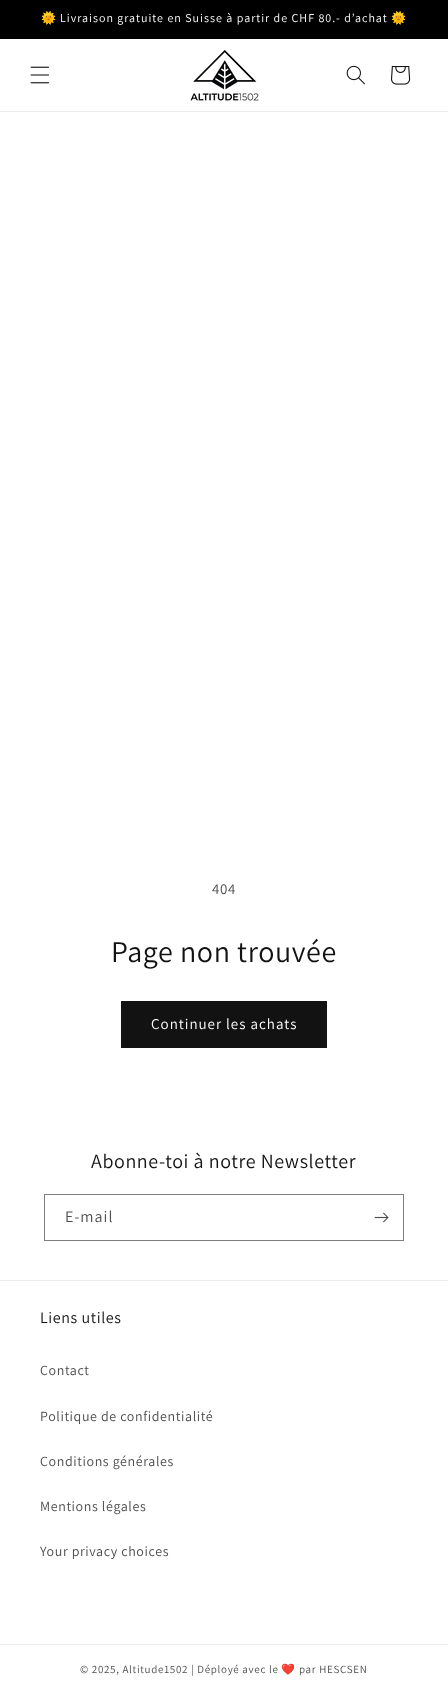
(async () => {
  const canvas = document.querySelector("canvas");
  canvas.width = 448;
  canvas.height = 1706;
  const ctx = canvas.getContext("2d");
  ctx.miterLimit = 4;
  ctx.fontKerning = "normal";
  async function loadImage(src) {
    const img = new Image();
    img.src = src;
    await img.decode();
    return img;
  }

  ctx.fillStyle = "#ffffff";
  ctx.fillRect(0, 0, 448, 1706);
  ctx.fillStyle = "#000000";
  ctx.fillRect(0, 0, 448, 39);
  ctx.fillStyle = "#ececec";
  ctx.fillRect(0, 111, 448, 1);
  ctx.drawImage(await loadImage("img/1.png"), 30, 66, 20, 18);
  ctx.drawImage(await loadImage("img/2.png"), 190, 50, 69, 51);
  ctx.drawImage(await loadImage("img/3.png"), 346, 65, 19, 20);
  ctx.drawImage(await loadImage("img/4.png"), 391, 66, 20, 19);
  ctx.fillStyle = "#121212";
  ctx.fillRect(121, 1001, 206, 47);
  ctx.strokeStyle = "#7d7d7d";
  ctx.strokeRect(44.5, 1194.5, 359, 46);
  ctx.drawImage(await loadImage("img/5.png"), 374, 1212, 15, 11);
  ctx.fillStyle = "#ececec";
  ctx.fillRect(0, 1280, 448, 1);
  ctx.fillRect(0, 1644, 448, 1);
  ctx.letterSpacing = "1px";
  ctx.font = "12px Noto Color Emoji";
  ctx.fillStyle = "#ffffff";
  ctx.fillText("🌞", 41, 22);
  ctx.font = "12px Assistant";
  ctx.fillText("Livraison gratuite en Suisse à partir de CHF 80.- d’achat", 60, 22);
  ctx.font = "12px Noto Color Emoji";
  ctx.fillText("🌞", 391, 22);
  ctx.letterSpacing = "0.6px";
  ctx.font = "15px Assistant";
  ctx.fillStyle = "#4d4d4d";
  ctx.fillText("404", 212, 894);
  ctx.font = "30px Assistant";
  ctx.fillStyle = "#121212";
  ctx.fillText("Page non trouvée", 111, 962);
  ctx.letterSpacing = "1px";
  ctx.font = "15px Assistant";
  ctx.fillStyle = "#ffffff";
  ctx.fillText("Continuer les achats", 151, 1029);
  ctx.letterSpacing = "0.6px";
  ctx.font = "20px Assistant";
  ctx.fillStyle = "#121212";
  ctx.fillText("Abonne-toi à notre Newsletter", 91, 1168);
  ctx.letterSpacing = "1px";
  ctx.font = "16px Assistant";
  ctx.fillStyle = "#4d4d4d";
  ctx.fillText("E-mail", 65, 1222);
  ctx.letterSpacing = "0.6px";
  ctx.fillStyle = "#121212";
  ctx.fillText("Liens utiles", 40, 1323);
  ctx.font = "14px Assistant";
  ctx.fillStyle = "#4d4d4d";
  for (const [text, x, y] of [
    ["Contact", 40, 1375],
    ["Politique de confidentialité", 40, 1421],
    ["Conditions générales", 40, 1466],
    ["Mentions légales", 40, 1511],
    ["Your privacy choices", 40, 1556],
  ]) {
    ctx.fillText(text, x, y);
  }
  ctx.letterSpacing = "0.7px";
  ctx.font = "11px Assistant";
  ctx.fillText("© 2025, Altitude1502 | Déployé avec le", 80, 1673);
  ctx.font = "11px Noto Color Emoji";
  ctx.fillText("❤️", 281, 1673);
  ctx.font = "11px Assistant";
  ctx.fillText("par HESCSEN", 299, 1673);
})();
